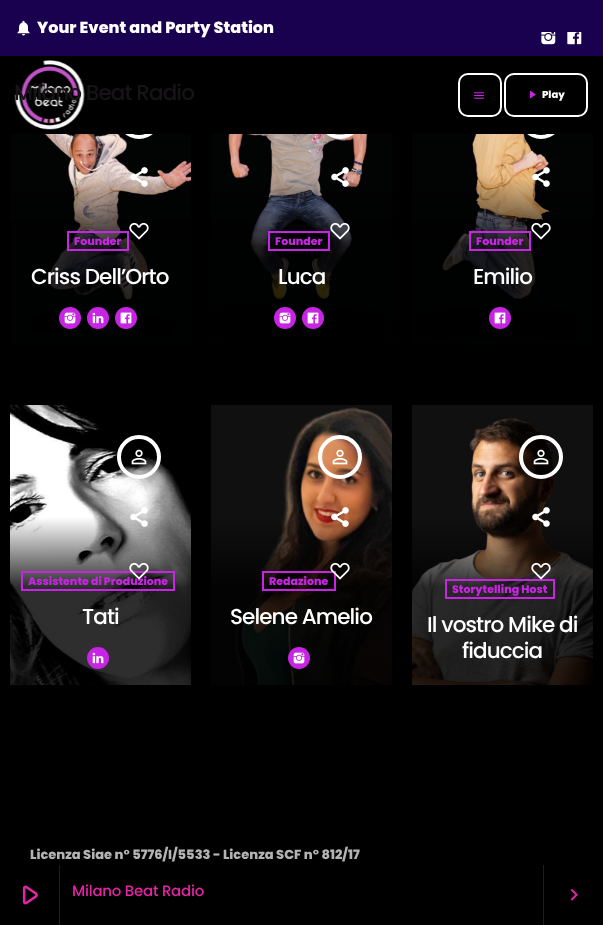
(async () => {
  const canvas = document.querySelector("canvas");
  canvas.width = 603;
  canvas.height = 925;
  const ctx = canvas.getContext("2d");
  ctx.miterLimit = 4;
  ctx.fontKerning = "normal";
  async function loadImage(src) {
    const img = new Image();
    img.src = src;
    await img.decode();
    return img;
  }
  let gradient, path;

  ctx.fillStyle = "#000000";
  ctx.fillRect(0, 0, 603, 925);
  ctx.drawImage(await loadImage("img/6.png"), 10, 134, 181, 211);
  ctx.beginPath();
  ctx.arc(139, 117, 20, 0, Math.PI * 2);
  ctx.strokeStyle = "#ffffff";
  ctx.lineWidth = 4;
  ctx.stroke();
  ctx.drawImage(await loadImage("img/12.png"), 211, 134, 181, 211);
  ctx.beginPath();
  ctx.arc(340, 117, 20, 0, Math.PI * 2);
  ctx.stroke();
  ctx.drawImage(await loadImage("img/15.png"), 412, 134, 181, 211);
  ctx.beginPath();
  ctx.arc(541, 117, 20, 0, Math.PI * 2);
  ctx.stroke();
  ctx.fillRect(117, 95, 446, 39);
  ctx.fillStyle = "#1a0150";
  ctx.fillRect(0, 0, 603, 56);
  ctx.drawImage(await loadImage("img/1.png"), 17, 20, 13, 16);
  ctx.drawImage(await loadImage("img/2.png"), 541, 32, 15, 13);
  ctx.drawImage(await loadImage("img/3.png"), 567, 32, 15, 13);
  ctx.drawImage(await loadImage("img/4.png"), 14, 60, 71, 70);
  ctx.beginPath();
  ctx.roundRect(459, 74, 42, 42, 9);
  ctx.lineWidth = 2;
  ctx.stroke();
  ctx.drawImage(await loadImage("img/5.png"), 474, 92, 10, 7);
  ctx.beginPath();
  ctx.roundRect(505, 74, 82, 42, 9);
  ctx.stroke();
  ctx.fillStyle = "#c824e3";
  path = new Path2D("M530 90.5L536 94.5L530 98.5Z");
  ctx.fill(path);
  ctx.drawImage(await loadImage("img/7.png"), 130, 167, 18, 20);
  ctx.drawImage(await loadImage("img/8.png"), 129, 222, 20, 18);
  ctx.strokeStyle = "#c824e3";
  ctx.strokeRect(68, 232, 60, 18);
  ctx.beginPath();
  ctx.arc(70, 318, 11, 0, Math.PI * 2);
  ctx.fill();
  ctx.drawImage(await loadImage("img/9.png"), 64, 312, 12, 12);
  ctx.beginPath();
  ctx.arc(98, 318, 11, 0, Math.PI * 2);
  ctx.fill();
  ctx.drawImage(await loadImage("img/10.png"), 92, 312, 12, 12);
  ctx.beginPath();
  ctx.arc(126, 318, 11, 0, Math.PI * 2);
  ctx.fill();
  ctx.drawImage(await loadImage("img/11.png"), 120, 312, 12, 12);
  ctx.drawImage(await loadImage("img/13.png"), 331, 167, 18, 20);
  ctx.drawImage(await loadImage("img/14.png"), 330, 222, 20, 18);
  ctx.strokeRect(269, 232, 60, 18);
  ctx.beginPath();
  ctx.arc(285, 318, 11, 0, Math.PI * 2);
  ctx.fill();
  ctx.drawImage(await loadImage("img/9.png"), 279, 312, 12, 12);
  ctx.beginPath();
  ctx.arc(313, 318, 11, 0, Math.PI * 2);
  ctx.fill();
  ctx.drawImage(await loadImage("img/11.png"), 307, 312, 12, 12);
  ctx.drawImage(await loadImage("img/16.png"), 532, 167, 18, 20);
  ctx.drawImage(await loadImage("img/17.png"), 531, 222, 20, 18);
  ctx.strokeRect(470, 232, 60, 18);
  ctx.beginPath();
  ctx.arc(500, 318, 11, 0, Math.PI * 2);
  ctx.fill();
  ctx.drawImage(await loadImage("img/11.png"), 494, 312, 12, 12);
  ctx.drawImage(await loadImage("img/18.png"), 10, 405, 181, 280);
  ctx.beginPath();
  ctx.arc(139, 457, 20, 0, Math.PI * 2);
  ctx.strokeStyle = "#ffffff";
  ctx.lineWidth = 4;
  ctx.stroke();
  ctx.drawImage(await loadImage("img/19.png"), 131, 449, 16, 16);
  ctx.drawImage(await loadImage("img/20.png"), 130, 507, 18, 20);
  ctx.strokeStyle = "#c824e3";
  ctx.lineWidth = 2;
  ctx.strokeRect(22, 572, 152, 18);
  ctx.beginPath();
  ctx.arc(98, 658, 11, 0, Math.PI * 2);
  ctx.fill();
  ctx.drawImage(await loadImage("img/10.png"), 92, 652, 12, 12);
  ctx.fillStyle = "#101010";
  ctx.fillRect(211, 405, 181, 280);
  ctx.drawImage(await loadImage("img/22.png"), 235, 407, 157, 278);
  gradient = ctx.createLinearGradient(302, 405, 302, 685);
  gradient.addColorStop(0, "rgba(0, 0, 0, 0)");
  gradient.addColorStop(0.4, "rgba(0, 0, 0, 0)");
  gradient.addColorStop(0.65, "rgba(0, 0, 0, 0.82)");
  gradient.addColorStop(1, "rgba(0, 0, 0, 0.82)");
  ctx.fillStyle = gradient;
  ctx.fillRect(211, 519, 181, 166);
  ctx.beginPath();
  ctx.arc(340, 457, 20, 0, Math.PI * 2);
  ctx.strokeStyle = "#ffffff";
  ctx.lineWidth = 4;
  ctx.stroke();
  ctx.drawImage(await loadImage("img/23.png"), 332, 449, 16, 16);
  ctx.drawImage(await loadImage("img/24.png"), 331, 507, 18, 20);
  ctx.strokeStyle = "#c824e3";
  ctx.lineWidth = 2;
  ctx.strokeRect(263, 572, 72, 18);
  ctx.drawImage(await loadImage("img/25.png"), 330, 562, 20, 18);
  ctx.fillStyle = "#c824e3";
  ctx.beginPath();
  ctx.arc(299, 658, 11, 0, Math.PI * 2);
  ctx.fill();
  ctx.drawImage(await loadImage("img/9.png"), 293, 652, 12, 12);
  ctx.fillStyle = "#101010";
  ctx.fillRect(412, 405, 181, 188);
  ctx.drawImage(await loadImage("img/26.png"), 412, 418, 181, 267);
  gradient = ctx.createLinearGradient(503, 405, 503, 685);
  gradient.addColorStop(0, "rgba(0, 0, 0, 0)");
  gradient.addColorStop(0.4, "rgba(0, 0, 0, 0)");
  gradient.addColorStop(0.65, "rgba(0, 0, 0, 0.82)");
  gradient.addColorStop(1, "rgba(0, 0, 0, 0.82)");
  ctx.fillStyle = gradient;
  ctx.fillRect(412, 519, 181, 166);
  ctx.beginPath();
  ctx.arc(541, 457, 20, 0, Math.PI * 2);
  ctx.strokeStyle = "#ffffff";
  ctx.lineWidth = 4;
  ctx.stroke();
  ctx.drawImage(await loadImage("img/27.png"), 533, 449, 16, 16);
  ctx.drawImage(await loadImage("img/28.png"), 532, 507, 18, 20);
  ctx.strokeStyle = "#c824e3";
  ctx.lineWidth = 2;
  ctx.strokeRect(446, 580, 108, 18);
  ctx.drawImage(await loadImage("img/29.png"), 531, 562, 20, 18);
  ctx.fillStyle = "#1e1e1e";
  ctx.fillRect(59, 865, 1, 60);
  ctx.drawImage(await loadImage("img/30.png"), 22, 885, 16, 20);
  ctx.fillRect(543, 865, 1, 60);
  ctx.drawImage(await loadImage("img/31.png"), 570, 888, 8, 13);
  ctx.font = "800 16px Poppins";
  ctx.fillStyle = "#ffffff";
  ctx.fillText("Your Event and Party Station", 37, 33);
  ctx.letterSpacing = "-0.9px";
  ctx.font = "500 21.5px Poppins";
  ctx.fillStyle = "#171417";
  ctx.fillText("Milano Beat Radio", 14, 100);
  ctx.letterSpacing = "0px";
  ctx.font = "800 10px Poppins";
  ctx.fillStyle = "#ffffff";
  ctx.fillText("Play", 542, 98);
  ctx.font = "800 11px Poppins";
  ctx.fillStyle = "#c824e3";
  ctx.fillText("Founder", 74, 245);
  ctx.letterSpacing = "-0.9px";
  ctx.font = "500 21.5px Poppins";
  ctx.fillStyle = "#ffffff";
  ctx.fillText("Criss Dell’Orto", 31, 284);
  ctx.letterSpacing = "0px";
  ctx.font = "800 11px Poppins";
  ctx.fillStyle = "#c824e3";
  ctx.fillText("Founder", 275, 245);
  ctx.letterSpacing = "-0.9px";
  ctx.font = "500 21.5px Poppins";
  ctx.fillStyle = "#ffffff";
  ctx.fillText("Luca", 278, 284);
  ctx.letterSpacing = "0px";
  ctx.font = "800 11px Poppins";
  ctx.fillStyle = "#c824e3";
  ctx.fillText("Founder", 476, 245);
  ctx.letterSpacing = "-0.9px";
  ctx.font = "500 21.5px Poppins";
  ctx.fillStyle = "#ffffff";
  ctx.fillText("Emilio", 473, 284);
  ctx.letterSpacing = "0px";
  ctx.font = "800 11px Poppins";
  ctx.fillStyle = "#c824e3";
  ctx.fillText("Assistente di Produzione", 28, 585);
  ctx.drawImage(await loadImage("img/21.png"), 129, 562, 20, 18);
  ctx.letterSpacing = "-0.9px";
  ctx.font = "500 21.5px Poppins";
  ctx.fillStyle = "#ffffff";
  ctx.fillText("Tati", 82, 624);
  ctx.letterSpacing = "0px";
  ctx.font = "800 11px Poppins";
  ctx.fillStyle = "#c824e3";
  ctx.fillText("Redazione", 269, 585);
  ctx.letterSpacing = "-0.9px";
  ctx.font = "500 21.5px Poppins";
  ctx.fillStyle = "#ffffff";
  ctx.fillText("Selene Amelio", 230, 624);
  ctx.letterSpacing = "0px";
  ctx.font = "800 11px Poppins";
  ctx.fillStyle = "#c824e3";
  ctx.fillText("Storytelling Host", 452, 593);
  ctx.letterSpacing = "-0.9px";
  ctx.font = "500 21.5px Poppins";
  ctx.fillStyle = "#ffffff";
  ctx.fillText("Il vostro Mike di", 427, 632);
  ctx.fillText("fiduccia", 462, 658);
  ctx.letterSpacing = "0px";
  ctx.font = "800 13px Poppins";
  ctx.fillStyle = "#b3b3b3";
  ctx.fillText("Licenza Siae n° 5776/I/5533 - Licenza SCF n° 812/17", 30, 859);
  ctx.letterSpacing = "-0.25px";
  ctx.font = "500 15px Poppins";
  ctx.fillStyle = "#e324a4";
  ctx.fillText("Milano Beat Radio", 72, 896);
})();
